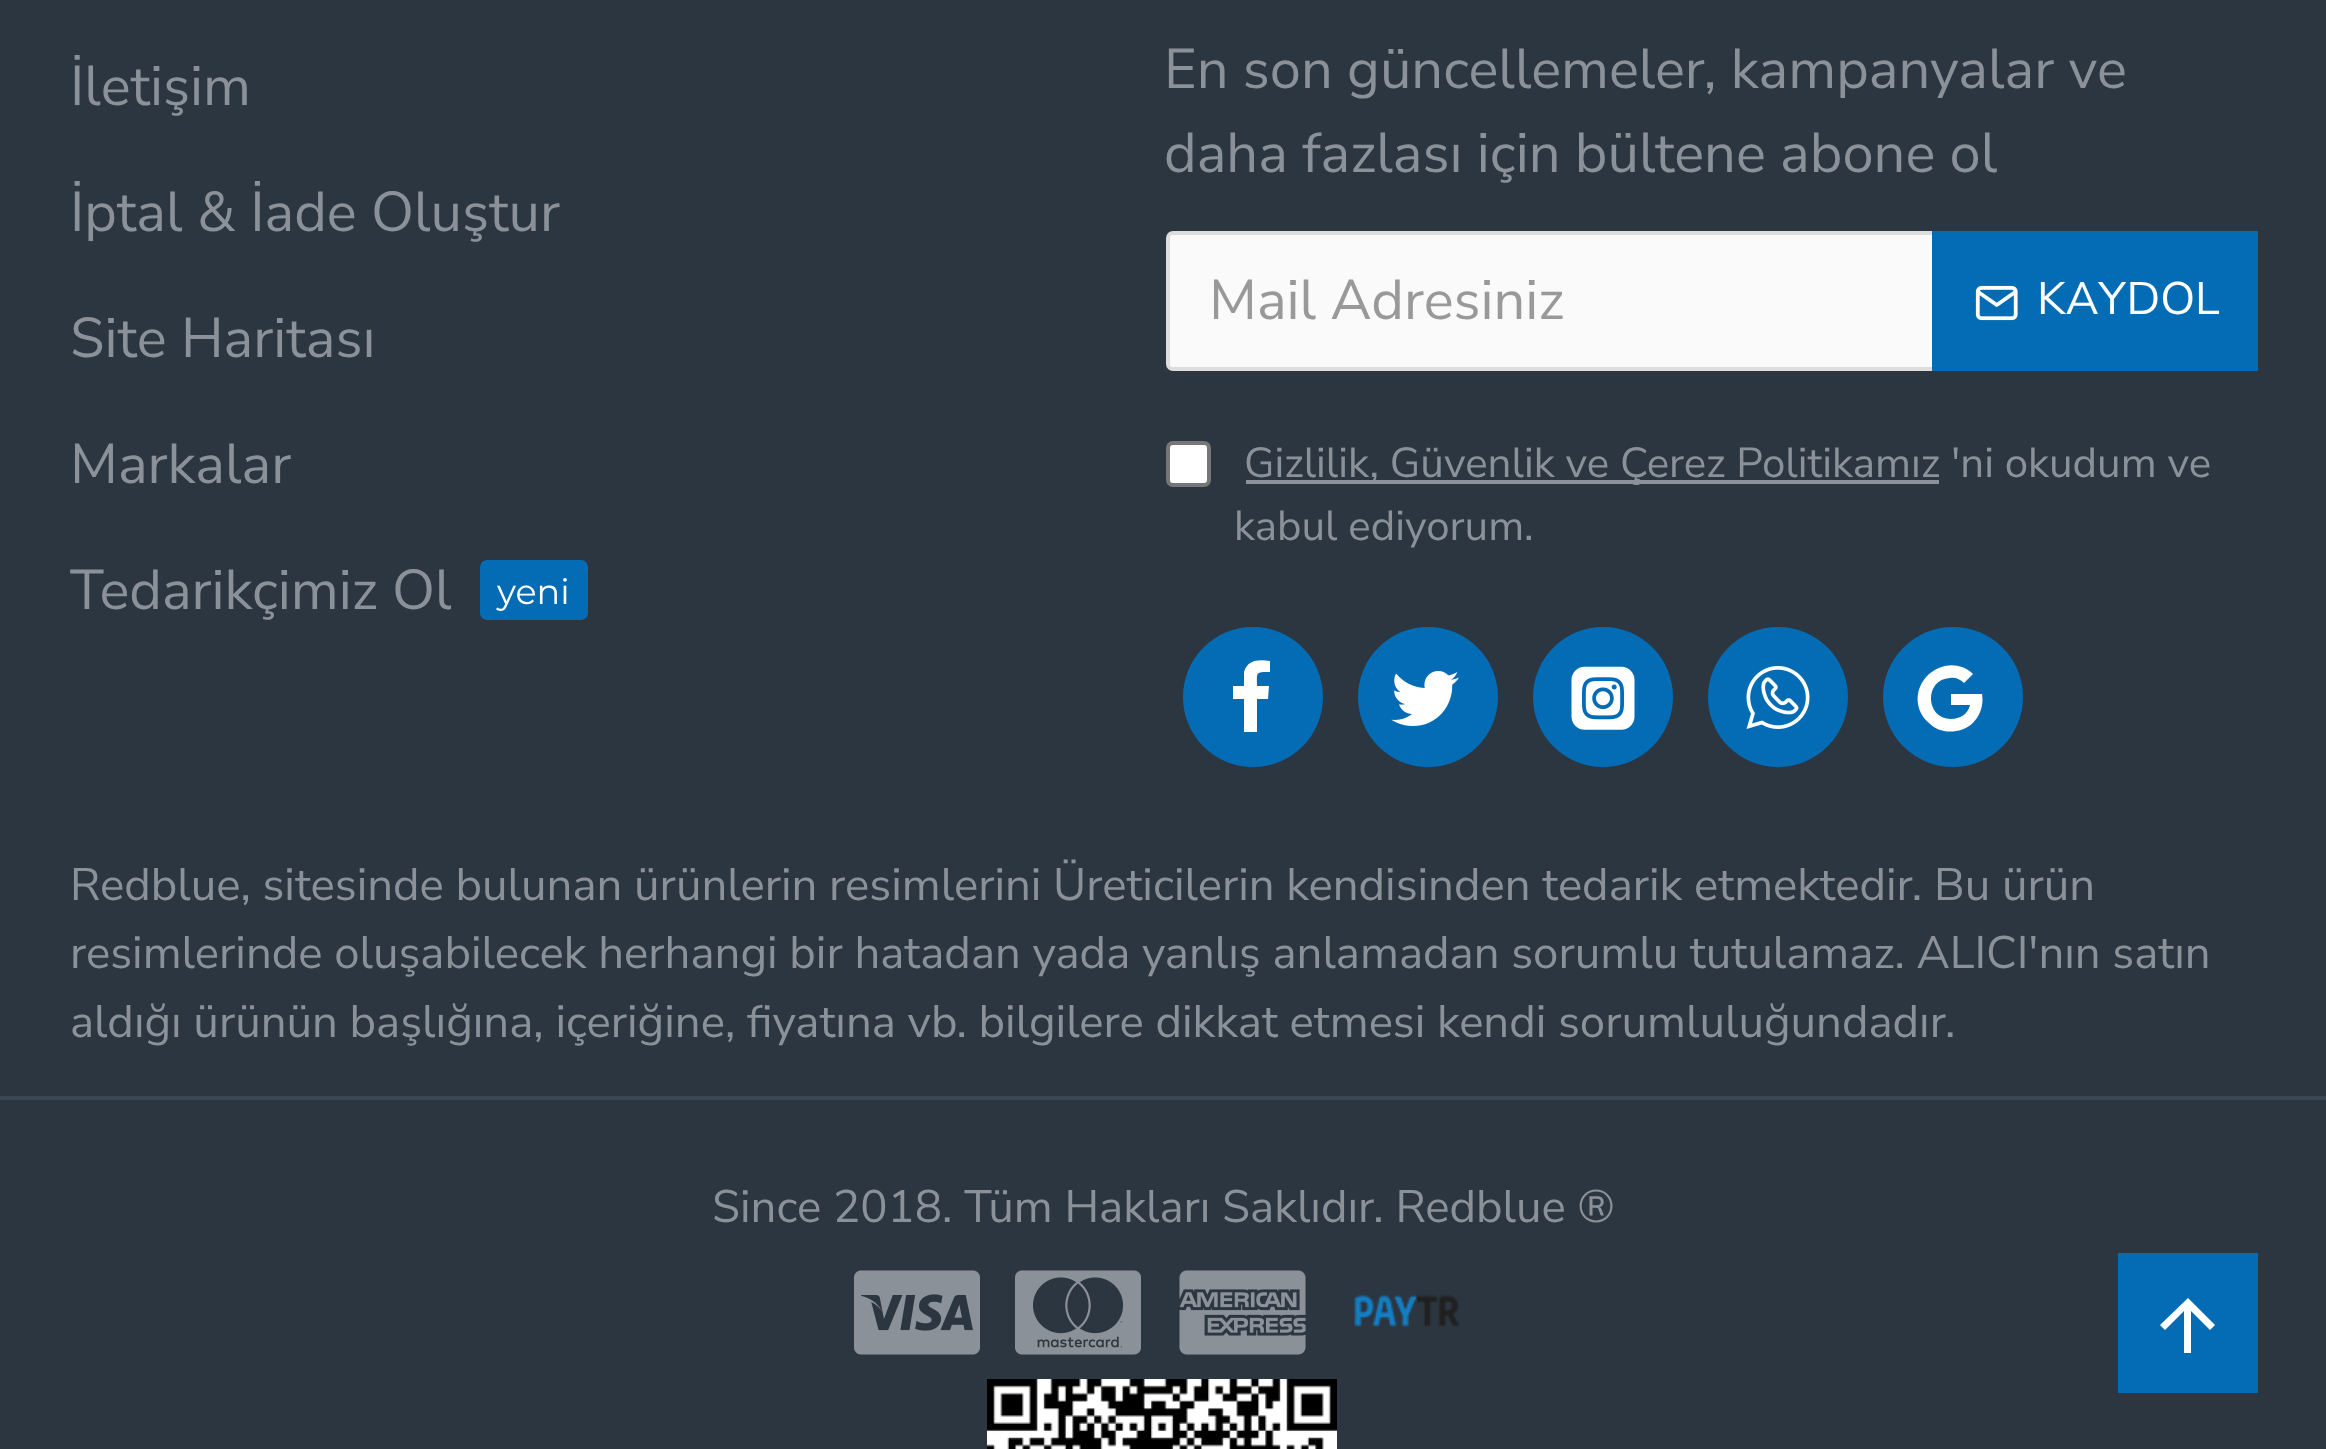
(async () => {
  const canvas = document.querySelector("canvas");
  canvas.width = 2326;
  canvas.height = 1449;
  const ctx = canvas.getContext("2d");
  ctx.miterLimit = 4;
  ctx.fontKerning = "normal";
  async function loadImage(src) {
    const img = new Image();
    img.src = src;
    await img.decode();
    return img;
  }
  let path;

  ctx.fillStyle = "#2c3640";
  ctx.fillRect(0, 0, 2326, 1449);
  ctx.fillStyle = "#046cb5";
  ctx.beginPath();
  ctx.roundRect(480, 560, 108, 60, 7);
  ctx.fill();
  ctx.fillStyle = "#fafafa";
  ctx.beginPath();
  ctx.roundRect(1168, 233, 1088, 136, 5);
  ctx.fill();
  ctx.strokeStyle = "#dddddd";
  ctx.lineWidth = 4;
  ctx.stroke();
  ctx.fillStyle = "#046cb5";
  ctx.fillRect(1932, 231, 326, 140);
  ctx.drawImage(await loadImage("img/1.png"), 1975, 285, 43, 36);
  ctx.fillStyle = "#ffffff";
  ctx.beginPath();
  ctx.roundRect(1168, 443, 41, 42, 5);
  ctx.fill();
  ctx.strokeStyle = "#767676";
  ctx.stroke();
  ctx.fillStyle = "#8b9198";
  ctx.fillRect(1246, 480, 693, 4);
  ctx.fillStyle = "#046cb5";
  ctx.beginPath();
  ctx.arc(1253, 697, 70, 0, Math.PI * 2);
  ctx.fill();
  ctx.fillStyle = "#ffffff";
  path = new Path2D("M1270 661V672C1255 672 1257 672 1257 686H1269L1268 699H1257V732H1244V699H1233V686H1244V672C1247 660 1259 659 1270 661Z");
  ctx.fill(path);
  ctx.fillStyle = "#046cb5";
  ctx.beginPath();
  ctx.arc(1428, 697, 70, 0, Math.PI * 2);
  ctx.fill();
  ctx.drawImage(await loadImage("img/2.png"), 1391, 671, 68, 55);
  ctx.beginPath();
  ctx.arc(1603, 697, 70, 0, Math.PI * 2);
  ctx.fill();
  ctx.drawImage(await loadImage("img/3.png"), 1571, 666, 64, 64);
  ctx.beginPath();
  ctx.arc(1778, 697, 70, 0, Math.PI * 2);
  ctx.fill();
  ctx.drawImage(await loadImage("img/4.png"), 1746, 666, 64, 63);
  ctx.beginPath();
  ctx.arc(1953, 697, 70, 0, Math.PI * 2);
  ctx.fill();
  ctx.fillStyle = "#ffffff";
  path = new Path2D("M1951 694H1982C1985 711 1974 729 1956 731C1946 733 1936 730 1929 723C1923 718 1919 711 1918 704C1914 673 1951 653 1973 674L1964 683C1960 679 1955 677 1950 678C1924 679 1925 719 1951 719C1960 719 1968 714 1970 705H1951Z");
  ctx.fill(path);
  ctx.fillStyle = "#3a4754";
  ctx.fillRect(0, 1096, 2326, 4);
  ctx.drawImage(await loadImage("img/5.png"), 854, 1270, 126, 85);
  ctx.drawImage(await loadImage("img/6.png"), 1015, 1270, 126, 85);
  ctx.drawImage(await loadImage("img/7.png"), 1179, 1270, 127, 85);
  ctx.drawImage(await loadImage("img/8.png"), 1354, 1294, 106, 33);
  ctx.drawImage(await loadImage("img/9.png"), 987, 1379, 350, 70);
  ctx.fillStyle = "#046cb5";
  ctx.fillRect(2118, 1253, 140, 140);
  ctx.fillStyle = "#ffffff";
  path = new Path2D("M2160 1325L2188 1298L2215 1325L2210 1330L2191 1311V1353H2184V1311L2165 1330Z");
  ctx.fill(path);
  ctx.font = "56px Nunito Sans";
  ctx.fillStyle = "#8b9198";
  for (const [text, x, y] of [
    ["İletişim", 70, 105],
    ["İptal & İade Oluştur", 70, 231],
    ["Site Haritası", 70, 357],
    ["Markalar", 70, 483],
    ["Tedarikçimiz Ol", 70, 609],
  ]) {
    ctx.fillText(text, x, y);
  }
  ctx.font = "35px Montserrat";
  ctx.fillStyle = "#ffffff";
  ctx.fillText("yeni", 497, 604);
  ctx.font = "56px Nunito Sans";
  ctx.fillStyle = "#8b9198";
  ctx.fillText("En son güncellemeler, kampanyalar ve", 1164, 88);
  ctx.fillText("daha fazlası için bültene abone ol", 1164, 172);
  ctx.fillStyle = "#999999";
  ctx.fillText("Mail Adresiniz", 1209, 319);
  ctx.font = "45.5px Nunito Sans";
  ctx.fillStyle = "#ffffff";
  ctx.fillText("KAYDOL", 2037, 314);
  ctx.font = "42px Nunito Sans";
  ctx.fillStyle = "#8b9198";
  for (const [text, x, y] of [
    ["Gizlilik, Güvenlik ve Çerez Politikamız", 1244, 477],
    ["'ni okudum ve", 1951, 477],
    ["kabul ediyorum.", 1234, 540],
  ]) {
    ctx.fillText(text, x, y);
  }
  ctx.font = "45.5px Nunito Sans";
  for (const [text, x, y] of [
    ["Redblue, sitesinde bulunan ürünlerin resimlerini Üreticilerin kendisinden tedarik etmektedir. Bu ürün", 70, 900],
    ["resimlerinde oluşabilecek herhangi bir hatadan yada yanlış anlamadan sorumlu tutulamaz. ALICI'nın satın", 70, 968],
    ["aldığı ürünün başlığına, içeriğine, fiyatına vb. bilgilere dikkat etmesi kendi sorumluluğundadır.", 70, 1037],
    ["Since 2018. Tüm Hakları Saklıdır. Redblue ®", 712, 1222],
  ]) {
    ctx.fillText(text, x, y);
  }
})();
